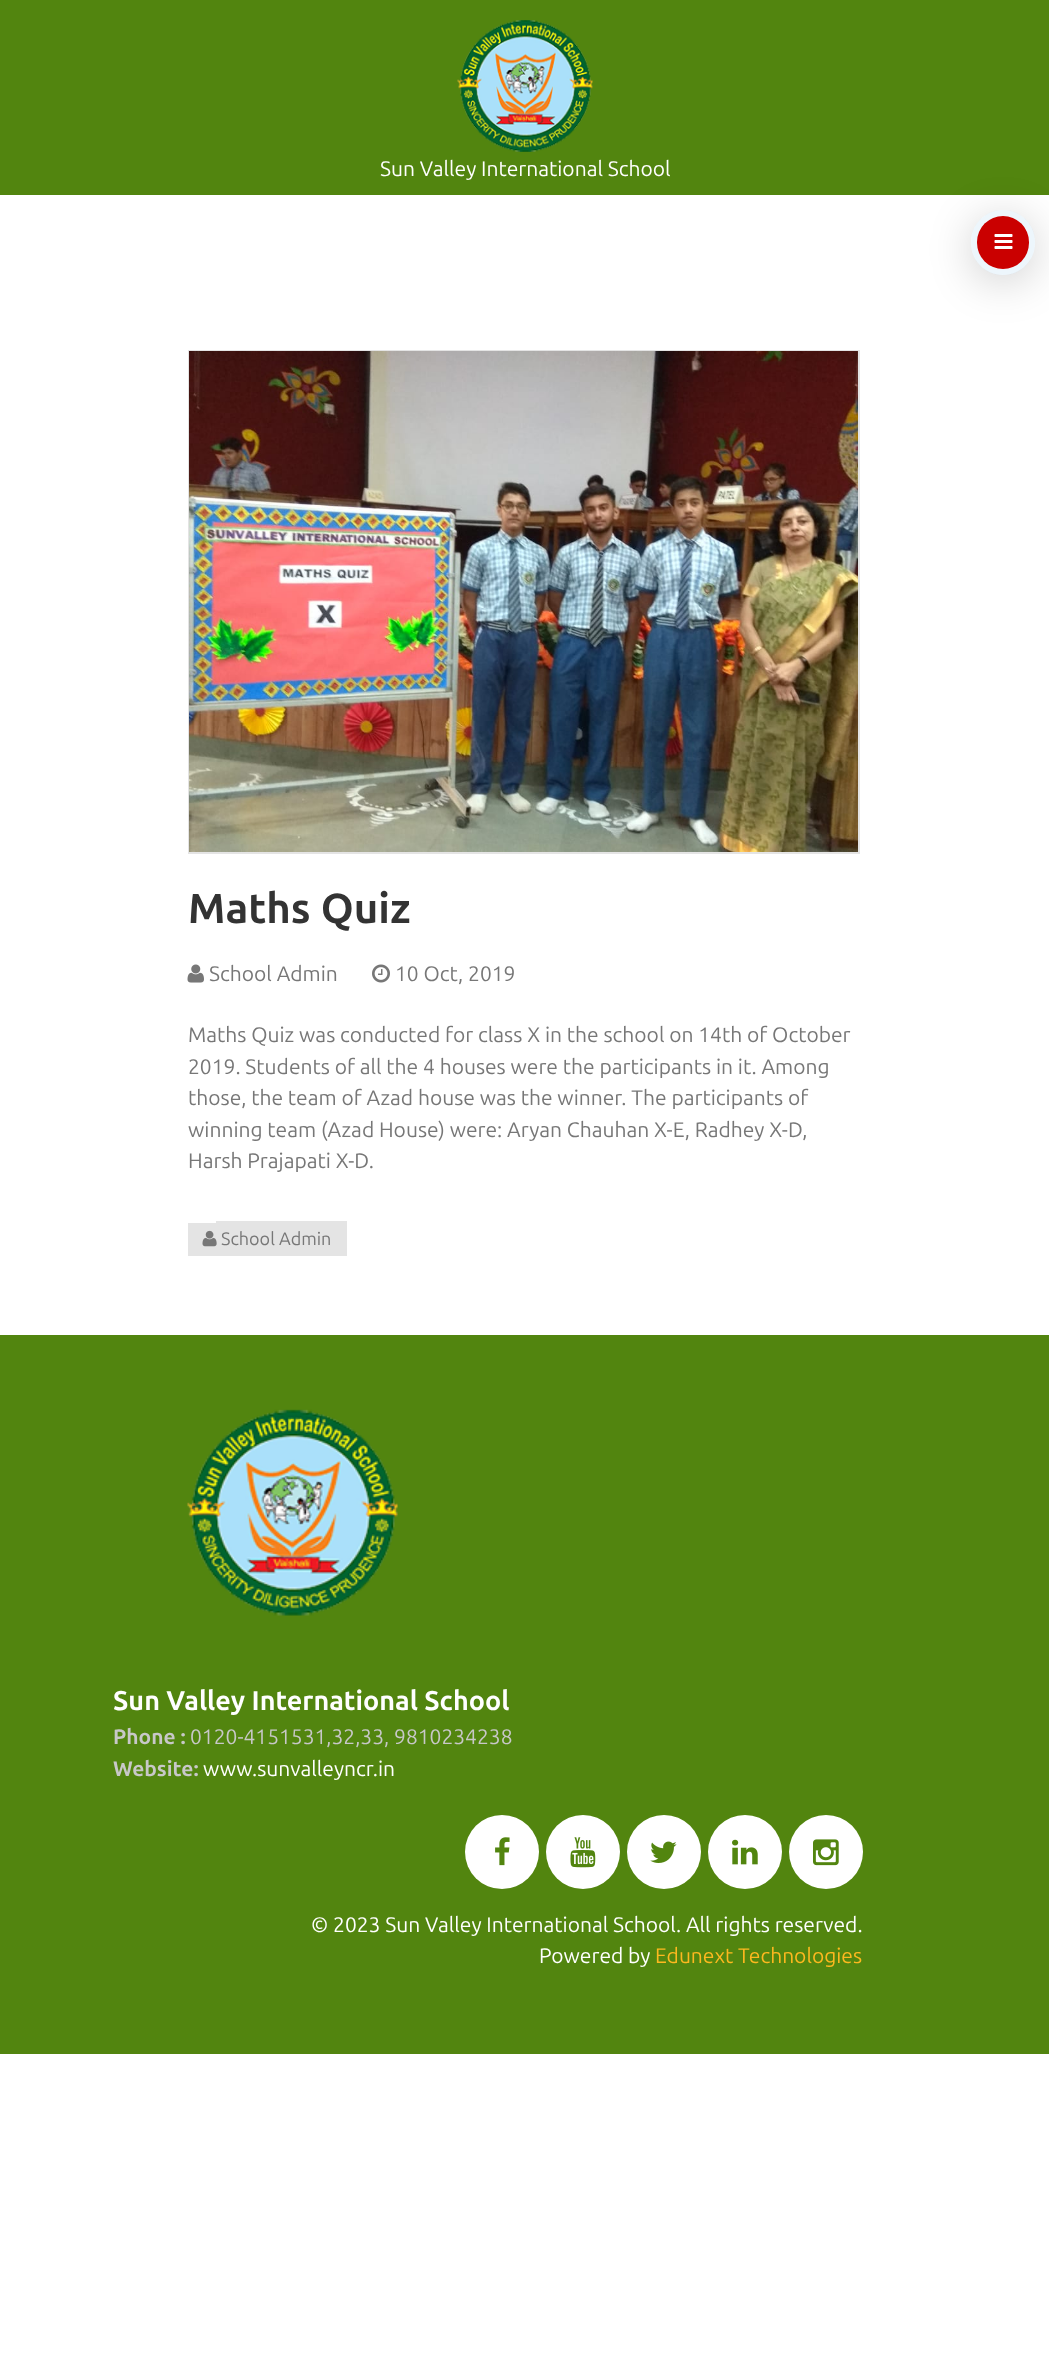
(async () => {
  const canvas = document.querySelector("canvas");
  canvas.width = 1049;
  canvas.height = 2363;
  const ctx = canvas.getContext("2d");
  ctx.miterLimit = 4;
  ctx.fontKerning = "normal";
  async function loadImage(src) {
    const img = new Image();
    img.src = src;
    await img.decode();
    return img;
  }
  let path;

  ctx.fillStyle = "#ffffff";
  ctx.fillRect(0, 0, 1049, 2363);
  ctx.fillStyle = "#52850f";
  ctx.fillRect(0, 0, 1049, 195);
  ctx.drawImage(await loadImage("img/1.png"), 457, 20, 136, 132);
  ctx.save();
  path = new Path2D("M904 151H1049V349H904ZM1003 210C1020.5 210 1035 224.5 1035 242V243C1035 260.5 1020.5 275 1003 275C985.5 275 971 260.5 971 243V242C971 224.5 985.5 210 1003 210Z");
  ctx.clip(path, "evenodd");
  ctx.fillStyle = "rgba(0, 0, 0, 0.19)";
  ctx.filter = "blur(22px)";
  ctx.beginPath();
  ctx.roundRect(971, 218, 64, 64, 32);
  ctx.fill();
  ctx.filter = "none";
  ctx.restore();
  ctx.fillStyle = "#ca0000";
  ctx.beginPath();
  ctx.roundRect(977, 216, 52, 53, 26);
  ctx.fill();
  ctx.beginPath();
  ctx.roundRect(974, 213, 58, 59, 29);
  ctx.strokeStyle = "rgba(135, 194, 235, 0.15)";
  ctx.lineWidth = 6;
  ctx.stroke();
  ctx.drawImage(await loadImage("img/2.png"), 994, 234, 19, 15);
  ctx.strokeStyle = "#e4e4e4";
  ctx.lineWidth = 2;
  ctx.strokeRect(189, 351, 670, 502);
  ctx.drawImage(await loadImage("img/3.png"), 189, 351, 669, 501);
  ctx.drawImage(await loadImage("img/4.png"), 187, 964, 17, 19);
  ctx.drawImage(await loadImage("img/5.png"), 372, 964, 18, 19);
  ctx.fillStyle = "#e4e4e4";
  ctx.fillRect(188, 1223, 28, 33);
  ctx.fillRect(216, 1221, 131, 35);
  ctx.drawImage(await loadImage("img/6.png"), 202, 1230, 15, 17);
  ctx.fillStyle = "#52850f";
  ctx.fillRect(0, 1335, 1049, 719);
  ctx.drawImage(await loadImage("img/7.png"), 187, 1409, 211, 207);
  ctx.fillStyle = "#ffffff";
  ctx.beginPath();
  ctx.arc(502, 1852, 37, 0, Math.PI * 2);
  ctx.fill();
  ctx.drawImage(await loadImage("img/8.png"), 495, 1837, 15, 29);
  ctx.beginPath();
  ctx.arc(583, 1852, 37, 0, Math.PI * 2);
  ctx.fill();
  ctx.drawImage(await loadImage("img/9.png"), 570, 1837, 26, 31);
  ctx.beginPath();
  ctx.arc(664, 1852, 37, 0, Math.PI * 2);
  ctx.fill();
  ctx.drawImage(await loadImage("img/10.png"), 650, 1841, 27, 22);
  ctx.beginPath();
  ctx.arc(745, 1852, 37, 0, Math.PI * 2);
  ctx.fill();
  ctx.drawImage(await loadImage("img/11.png"), 732, 1839, 26, 26);
  ctx.beginPath();
  ctx.arc(826, 1852, 37, 0, Math.PI * 2);
  ctx.fill();
  ctx.drawImage(await loadImage("img/12.png"), 813, 1839, 26, 27);
  ctx.font = "21px Ubuntu";
  ctx.fillText("Sun Valley International School", 380, 176);
  ctx.font = "bold 42px Ubuntu";
  ctx.fillStyle = "#333333";
  ctx.fillText("Maths Quiz", 188, 923);
  ctx.font = "21px Ubuntu";
  ctx.fillStyle = "#777777";
  for (const [text, x, y] of [
    ["School Admin", 209, 981],
    ["10 Oct, 2019", 395, 981],
    ["Maths Quiz was conducted for class X in the school on 14th of October", 188, 1042],
    ["2019. Students of all the 4 houses were the participants in it. Among", 188, 1074],
    ["those, the team of Azad house was the winner. The participants of", 188, 1105],
    ["winning team (Azad House) were: Aryan Chauhan X-E, Radhey X-D,", 188, 1137],
    ["Harsh Prajapati X-D.", 188, 1168],
  ]) {
    ctx.fillText(text, x, y);
  }
  ctx.font = "18px Ubuntu";
  ctx.fillText("School Admin", 221, 1245);
  ctx.font = "bold 27px Ubuntu";
  ctx.fillStyle = "#ffffff";
  ctx.fillText("Sun Valley International School", 113, 1710);
  ctx.font = "bold 21px Ubuntu";
  ctx.fillStyle = "#c8c8c8";
  ctx.fillText("Phone :", 113, 1744);
  ctx.font = "21px Ubuntu";
  ctx.fillText("0120-4151531,32,33, 9810234238", 190, 1744);
  ctx.font = "bold 21px Ubuntu";
  ctx.fillText("Website:", 113, 1776);
  ctx.font = "21px Ubuntu";
  ctx.fillStyle = "#ffffff";
  for (const [text, x, y] of [
    ["www.sunvalleyncr.in", 203, 1776],
    ["© 2023 Sun Valley International School. All rights reserved.", 311, 1932],
    ["Powered by", 539, 1963],
  ]) {
    ctx.fillText(text, x, y);
  }
  ctx.fillStyle = "#fdb81f";
  ctx.fillText("Edunext Technologies", 655, 1963);
})();
